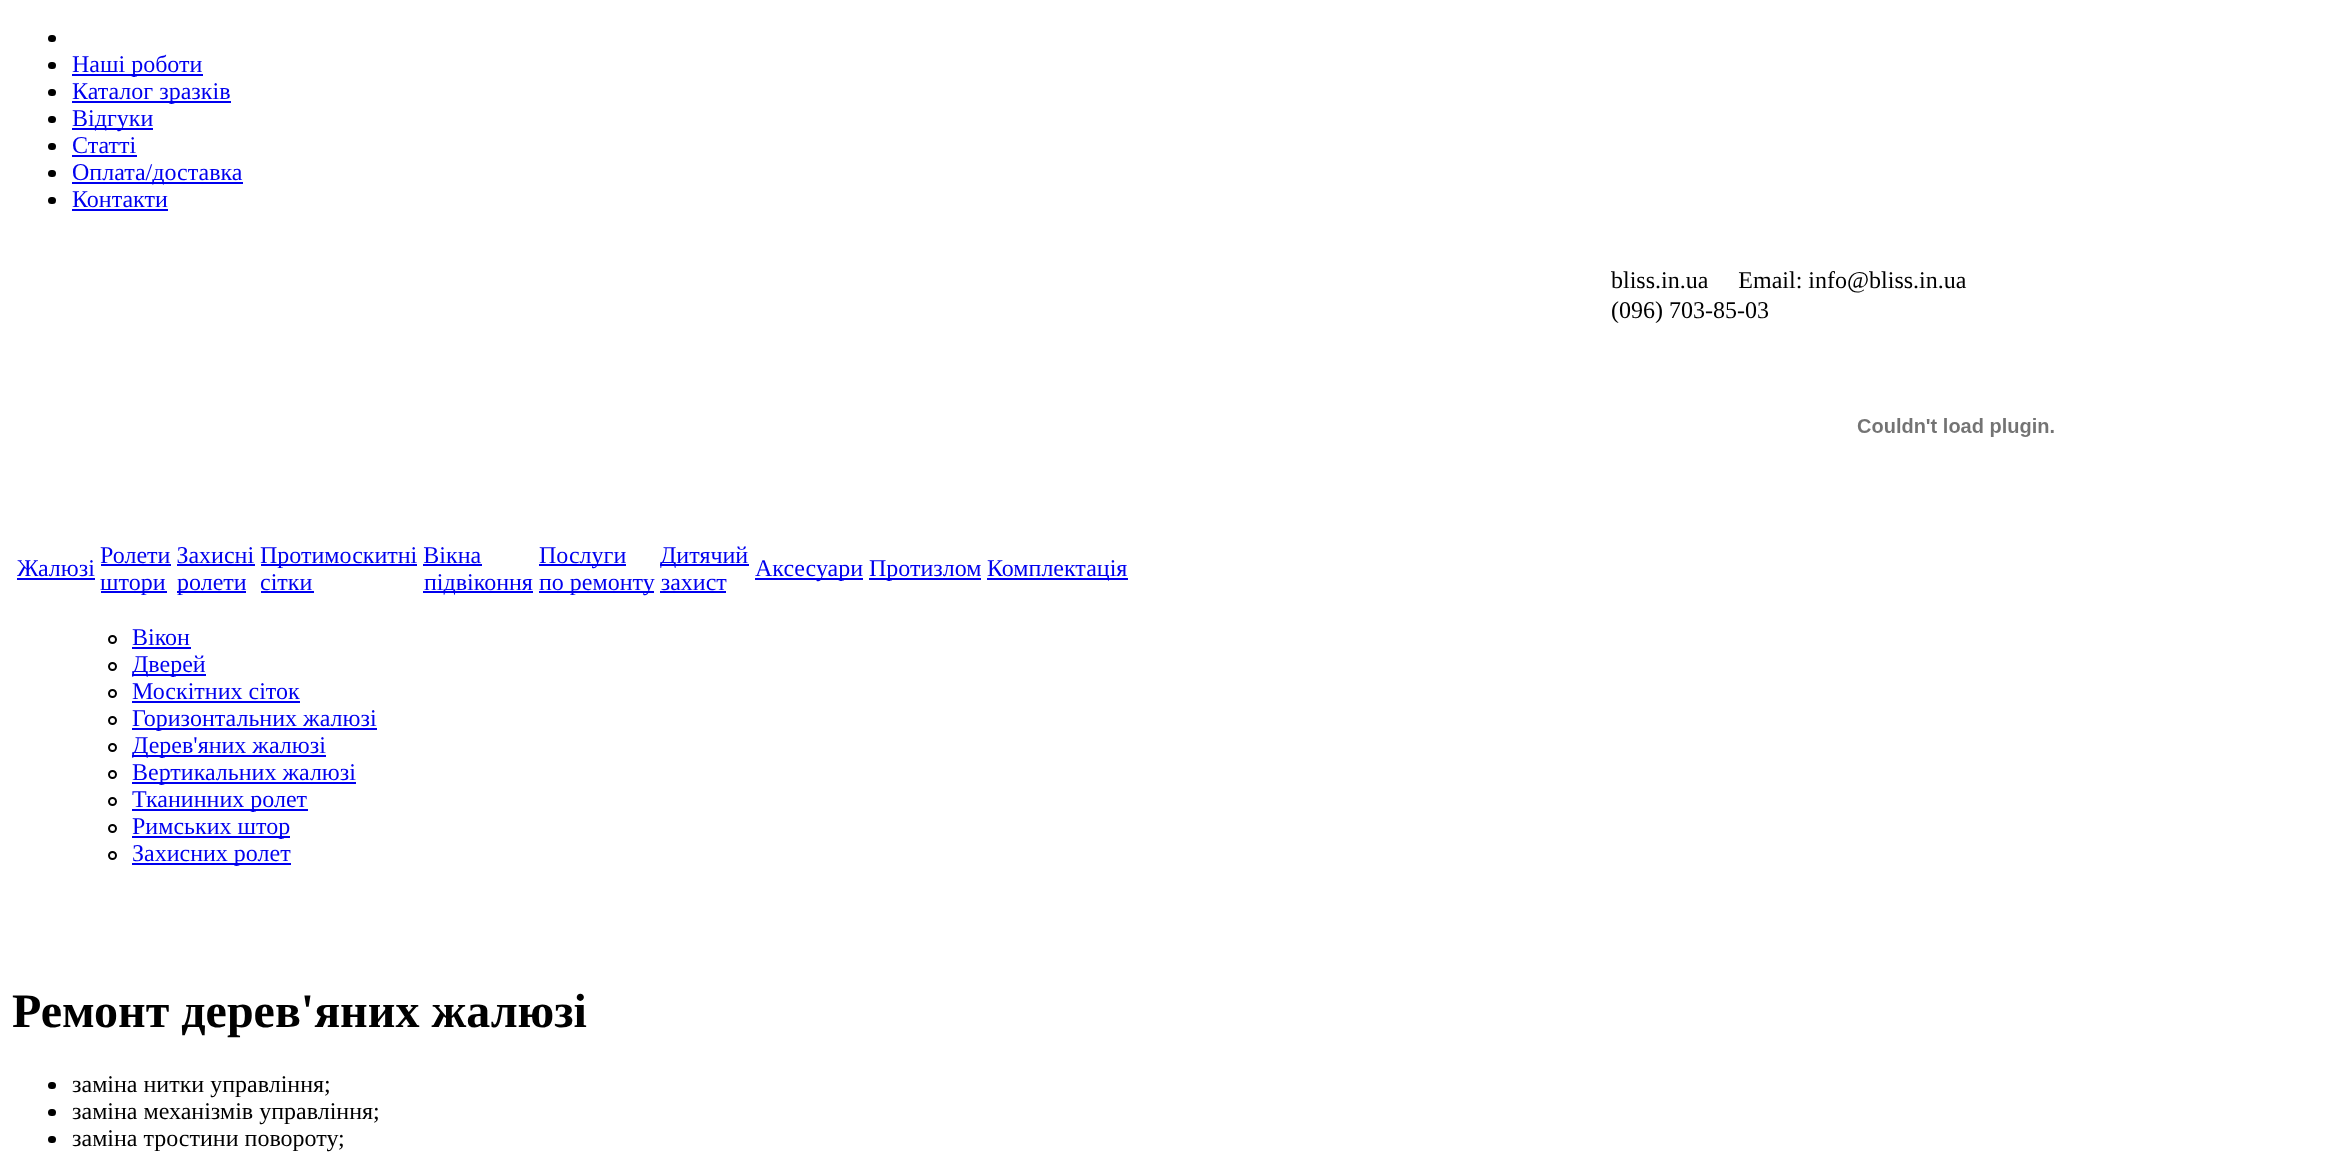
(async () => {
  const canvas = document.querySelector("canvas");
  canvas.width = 2343;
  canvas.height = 1162;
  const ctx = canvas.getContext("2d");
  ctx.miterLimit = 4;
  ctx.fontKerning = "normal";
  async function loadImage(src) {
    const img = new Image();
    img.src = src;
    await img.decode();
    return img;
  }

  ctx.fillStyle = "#ffffff";
  ctx.fillRect(0, 0, 2343, 1162);
  ctx.fillStyle = "#000000";
  ctx.beginPath();
  ctx.roundRect(48, 35, 8, 7, 3.5);
  ctx.fill();
  ctx.beginPath();
  ctx.roundRect(48, 62, 8, 7, 3.5);
  ctx.fill();
  ctx.fillStyle = "#0000ee";
  ctx.fillRect(72, 74, 131, 2);
  ctx.fillStyle = "#000000";
  ctx.beginPath();
  ctx.roundRect(48, 89, 8, 7, 3.5);
  ctx.fill();
  ctx.fillStyle = "#0000ee";
  ctx.fillRect(72, 101, 159, 2);
  ctx.fillStyle = "#000000";
  ctx.beginPath();
  ctx.roundRect(48, 116, 8, 7, 3.5);
  ctx.fill();
  ctx.fillStyle = "#0000ee";
  ctx.fillRect(72, 128, 81, 2);
  ctx.fillStyle = "#000000";
  ctx.beginPath();
  ctx.roundRect(48, 143, 8, 7, 3.5);
  ctx.fill();
  ctx.fillStyle = "#0000ee";
  ctx.fillRect(72, 155, 65, 2);
  ctx.fillStyle = "#000000";
  ctx.beginPath();
  ctx.roundRect(48, 170, 8, 7, 3.5);
  ctx.fill();
  ctx.fillStyle = "#0000ee";
  ctx.fillRect(72, 182, 171, 2);
  ctx.fillStyle = "#000000";
  ctx.beginPath();
  ctx.roundRect(48, 197, 8, 7, 3.5);
  ctx.fill();
  ctx.fillStyle = "#0000ee";
  ctx.fillRect(72, 209, 96, 2);
  ctx.drawImage(await loadImage("img/1.png"), 1857, 418, 197, 19);
  for (const [x, y, w, h, color] of [
    [101, 564, 70, 2, "#0000ee"],
    [101, 591, 66, 2, "#0000ee"],
    [261, 564, 156, 2, "#0000ee"],
    [261, 591, 53, 2, "#0000ee"],
    [660, 564, 89, 2, "#0000ee"],
    [660, 591, 66, 2, "#0000ee"],
    [17, 578, 78, 2, "#0000ee"],
    [539, 564, 87, 2, "#0000ee"],
    [539, 591, 115, 2, "#0000ee"],
    [755, 578, 108, 2, "#0000ee"],
    [869, 578, 112, 2, "#0000ee"],
    [987, 578, 141, 2, "#0000ee"],
    [177, 564, 78, 2, "#0000ee"],
    [177, 591, 69, 2, "#0000ee"],
    [423, 564, 59, 2, "#0000ee"],
    [423, 591, 110, 2, "#0000ee"],
  ]) {
    ctx.fillStyle = color;
    ctx.fillRect(x, y, w, h);
  }
  ctx.beginPath();
  ctx.arc(112.5, 639.5, 3.5, 0, Math.PI * 2);
  ctx.strokeStyle = "#000000";
  ctx.lineWidth = 2;
  ctx.stroke();
  ctx.fillRect(132, 647, 59, 2);
  ctx.beginPath();
  ctx.arc(112.5, 666.5, 3.5, 0, Math.PI * 2);
  ctx.stroke();
  ctx.fillRect(132, 674, 74, 2);
  ctx.beginPath();
  ctx.arc(112.5, 693.5, 3.5, 0, Math.PI * 2);
  ctx.stroke();
  ctx.fillRect(132, 701, 168, 2);
  ctx.beginPath();
  ctx.arc(112.5, 720.5, 3.5, 0, Math.PI * 2);
  ctx.stroke();
  ctx.fillRect(132, 728, 245, 2);
  ctx.beginPath();
  ctx.arc(112.5, 747.5, 3.5, 0, Math.PI * 2);
  ctx.stroke();
  ctx.fillRect(132, 755, 194, 2);
  ctx.beginPath();
  ctx.arc(112.5, 774.5, 3.5, 0, Math.PI * 2);
  ctx.stroke();
  ctx.fillRect(132, 782, 224, 2);
  ctx.beginPath();
  ctx.arc(112.5, 801.5, 3.5, 0, Math.PI * 2);
  ctx.stroke();
  ctx.fillRect(132, 809, 176, 2);
  ctx.beginPath();
  ctx.arc(112.5, 828.5, 3.5, 0, Math.PI * 2);
  ctx.stroke();
  ctx.fillRect(132, 836, 158, 2);
  ctx.beginPath();
  ctx.arc(112.5, 855.5, 3.5, 0, Math.PI * 2);
  ctx.stroke();
  ctx.fillRect(132, 863, 159, 2);
  ctx.fillStyle = "#000000";
  ctx.beginPath();
  ctx.roundRect(48, 1082, 8, 7, 3.5);
  ctx.fill();
  ctx.beginPath();
  ctx.roundRect(48, 1109, 8, 7, 3.5);
  ctx.fill();
  ctx.beginPath();
  ctx.roundRect(48, 1136, 8, 7, 3.5);
  ctx.fill();
  ctx.font = "24px Liberation Serif";
  ctx.fillStyle = "#0000ee";
  for (const [text, x, y] of [
    ["Наші роботи", 72, 72],
    ["Каталог зразків", 72, 99],
    ["Відгуки", 72, 126],
    ["Статті", 72, 153],
    ["Оплата/доставка", 72, 180],
    ["Контакти", 72, 207],
  ]) {
    ctx.fillText(text, x, y);
  }
  ctx.fillStyle = "#000000";
  ctx.fillText("bliss.in.ua     Email: info@bliss.in.ua", 1611, 288);
  ctx.fillText("(096) 703-85-03", 1611, 318);
  ctx.fillStyle = "#0000ee";
  for (const [text, x, y] of [
    ["Ролети Захисні", 100, 563],
    ["штори", 100, 590],
    ["Протимоскитні Вікна", 260, 563],
    ["сітки", 260, 590],
    ["Дитячий", 660, 563],
    ["Жалюзі", 17, 576],
    ["Послуги", 539, 563],
    ["по ремонту захист", 539, 590],
    ["Аксесуари", 755, 576],
    ["Протизлом", 869, 576],
    ["Комплектація", 987, 576],
    ["ролети", 177, 590],
    ["підвіконня", 424, 590],
    ["Вікон", 132, 645],
    ["Дверей", 132, 672],
    ["Москітних сіток", 132, 699],
    ["Горизонтальних жалюзі", 132, 726],
    ["Дерев'яних жалюзі", 132, 753],
    ["Вертикальних жалюзі", 132, 780],
    ["Тканинних ролет", 132, 807],
    ["Римських штор", 132, 834],
    ["Захисних ролет", 132, 861],
  ]) {
    ctx.fillText(text, x, y);
  }
  ctx.font = "bold 48px Liberation Serif";
  ctx.fillStyle = "#000000";
  ctx.fillText("Ремонт дерев'яних жалюзі", 12, 1027);
  ctx.font = "24px Liberation Serif";
  for (const [text, x, y] of [
    ["заміна нитки управління;", 72, 1092],
    ["заміна механізмів управління;", 72, 1119],
    ["заміна тростини повороту;", 72, 1146],
  ]) {
    ctx.fillText(text, x, y);
  }
})();
